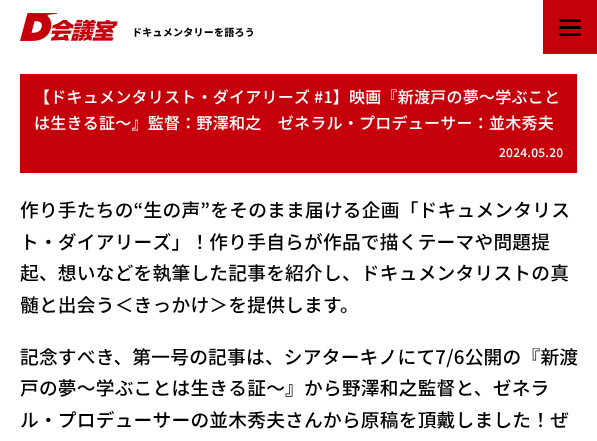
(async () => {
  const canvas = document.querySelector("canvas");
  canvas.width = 597;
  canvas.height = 441;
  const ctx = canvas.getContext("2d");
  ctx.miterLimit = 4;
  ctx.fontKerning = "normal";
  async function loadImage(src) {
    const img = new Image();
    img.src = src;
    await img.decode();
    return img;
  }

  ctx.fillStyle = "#ffffff";
  ctx.fillRect(0, 0, 597, 441);
  ctx.drawImage(await loadImage("img/1.png"), 20, 13, 98, 28);
  ctx.fillStyle = "#c6000b";
  ctx.fillRect(543, 0, 54, 54);
  ctx.fillStyle = "#000000";
  ctx.beginPath();
  ctx.roundRect(559, 19, 22, 3, 1.5);
  ctx.fill();
  ctx.beginPath();
  ctx.roundRect(559, 26, 22, 3, 1.5);
  ctx.fill();
  ctx.beginPath();
  ctx.roundRect(559, 33, 22, 3, 1.5);
  ctx.fill();
  ctx.fillStyle = "#c6000b";
  ctx.fillRect(20, 74, 557, 99);
  ctx.letterSpacing = "0.25px";
  ctx.font = "800 10px Noto Sans JP";
  ctx.fillStyle = "#000000";
  ctx.fillText("ドキュメンタリーを語ろう", 132, 36);
  ctx.font = "500 16px Noto Sans JP";
  ctx.fillStyle = "#ffffff";
  ctx.fillText("【ドキュメンタリスト・ダイアリーズ #1】映画『新渡戸の夢～学ぶこと", 34, 103);
  ctx.fillText("は生きる証～』監督：野澤和之　ゼネラル・プロデューサー：並木秀夫", 34, 129);
  ctx.font = "500 12px Noto Sans JP";
  ctx.fillText("2024.05.20", 499, 157);
  ctx.font = "500 18.7px Noto Sans JP";
  ctx.fillStyle = "#000000";
  for (const [text, x, y] of [
    ["作り手たちの“生の声”をそのまま届ける企画「ドキュメンタリス", 20, 217],
    ["ト・ダイアリーズ」！作り手自らが作品で描くテーマや問題提", 20, 249],
    ["起、想いなどを執筆した記事を紹介し、ドキュメンタリストの真", 20, 280],
    ["髄と出会う＜きっかけ＞を提供します。", 20, 312],
    ["記念すべき、第一号の記事は、シアターキノにて7/6公開の『新渡", 20, 364],
    ["戸の夢～学ぶことは生きる証～』から野澤和之監督と、ゼネラ", 20, 395],
    ["ル・プロデューサーの並木秀夫さんから原稿を頂戴しました！ぜ", 20, 427],
  ]) {
    ctx.fillText(text, x, y);
  }
})();
